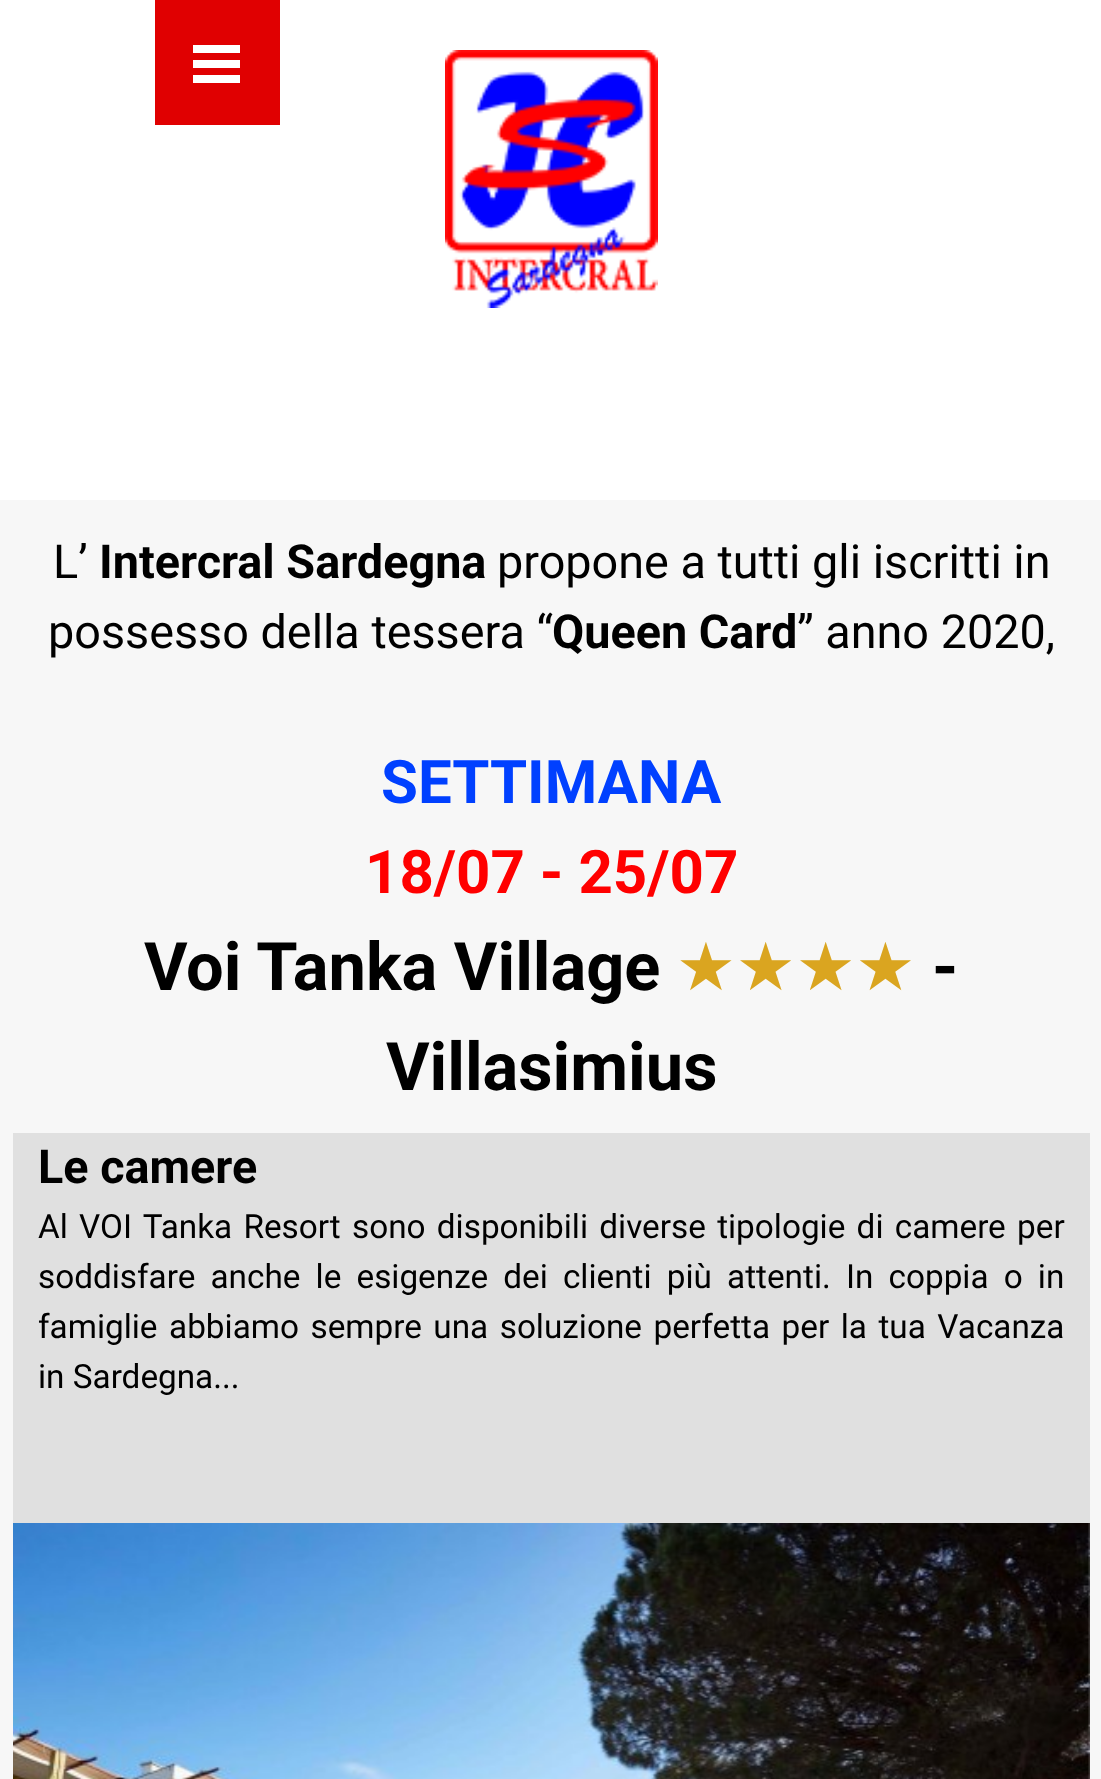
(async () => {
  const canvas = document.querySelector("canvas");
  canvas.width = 1101;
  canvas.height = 1779;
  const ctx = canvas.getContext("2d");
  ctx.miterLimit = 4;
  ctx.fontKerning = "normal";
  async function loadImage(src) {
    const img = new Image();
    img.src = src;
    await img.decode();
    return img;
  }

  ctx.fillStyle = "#f7f7f7";
  ctx.fillRect(0, 0, 1101, 1779);
  for (const [x, y, w, h, color] of [
    [0, 0, 1101, 500, "#ffffff"],
    [155, 0, 125, 125, "#e00001"],
    [193, 45, 47, 8, "#ffffff"],
    [193, 60, 47, 8, "#ffffff"],
    [193, 75, 47, 8, "#ffffff"],
  ]) {
    ctx.fillStyle = color;
    ctx.fillRect(x, y, w, h);
  }
  ctx.drawImage(await loadImage("img/1.png"), 445, 50, 213, 258);
  ctx.fillStyle = "#e0e0e0";
  ctx.fillRect(13, 1133, 1077, 390);
  ctx.drawImage(await loadImage("img/2.png"), 13, 1523, 1077, 256);
  ctx.font = "46.75px Roboto";
  ctx.fillStyle = "#000000";
  ctx.fillText("L’", 53, 578);
  ctx.font = "bold 46.75px Roboto";
  ctx.fillText("Intercral Sardegna", 99, 578);
  ctx.font = "46.75px Roboto";
  ctx.fillText("propone a tutti gli iscritti in", 497, 578);
  ctx.fillText("possesso della tessera “", 48, 648);
  ctx.font = "bold 46.75px Roboto";
  ctx.fillText("Queen Card", 552, 648);
  ctx.font = "46.75px Roboto";
  ctx.fillText("” anno 2020,", 797, 648);
  ctx.font = "bold 60px Roboto";
  ctx.fillStyle = "#0040ff";
  ctx.fillText("SETTIMANA", 381, 803);
  ctx.fillStyle = "#ff0000";
  ctx.fillText("18/07 - 25/07", 365, 893);
  ctx.font = "bold 66.75px Roboto";
  ctx.fillStyle = "#000000";
  ctx.fillText("Voi Tanka Village", 144, 990);
  ctx.font = "66.75px DejaVu Sans";
  ctx.fillStyle = "#daa520";
  ctx.fillText("★★★★", 676, 990);
  ctx.font = "bold 66.75px Roboto";
  ctx.fillStyle = "#000000";
  ctx.fillText("-", 932, 990);
  ctx.fillText("Villasimius", 386, 1090);
  ctx.font = "bold 46.75px Roboto";
  ctx.fillText("Le camere", 38, 1183);
  ctx.wordSpacing = "3px";
  ctx.font = "33.3px Roboto";
  ctx.fillText("Al VOI Tanka Resort sono disponibili diverse tipologie di camere per", 38, 1238);
  ctx.wordSpacing = "6.9px";
  ctx.fillText("soddisfare anche le esigenze dei clienti più attenti. In coppia o in", 38, 1288);
  ctx.wordSpacing = "3.25px";
  ctx.fillText("famiglie abbiamo sempre una soluzione perfetta per la tua Vacanza", 38, 1338);
  ctx.wordSpacing = "0px";
  ctx.fillText("in Sardegna...", 38, 1388);
})();
